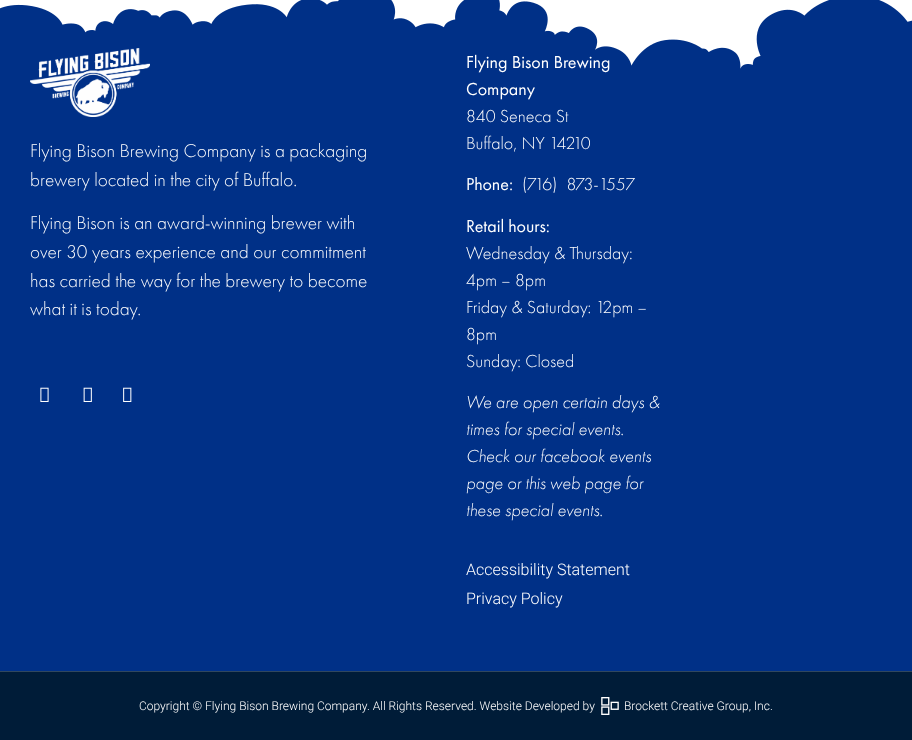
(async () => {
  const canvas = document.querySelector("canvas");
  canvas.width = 912;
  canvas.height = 740;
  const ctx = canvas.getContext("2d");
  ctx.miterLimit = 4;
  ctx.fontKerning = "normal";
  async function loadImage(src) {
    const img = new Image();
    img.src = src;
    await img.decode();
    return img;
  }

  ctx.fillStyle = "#003087";
  ctx.fillRect(0, 0, 912, 740);
  ctx.drawImage(await loadImage("img/1.png"), 0, 0, 912, 69);
  ctx.drawImage(await loadImage("img/2.png"), 30, 48, 120, 69);
  ctx.drawImage(await loadImage("img/3.png"), 40, 387, 9, 15);
  ctx.drawImage(await loadImage("img/4.png"), 83, 387, 9, 15);
  ctx.drawImage(await loadImage("img/5.png"), 123, 387, 9, 15);
  ctx.fillStyle = "#001c38";
  ctx.fillRect(0, 672, 912, 68);
  ctx.fillStyle = "#30475e";
  ctx.fillRect(0, 671, 912, 1);
  ctx.drawImage(await loadImage("img/6.png"), 601, 697, 18, 18);
  ctx.font = "300 19.25px Futura PT";
  ctx.fillStyle = "#ffffff";
  for (const [text, x, y] of [
    ["Flying Bison Brewing Company is a packaging", 30, 157],
    ["brewery located in the city of Buffalo.", 30, 186],
    ["Flying Bison is an award-winning brewer with", 30, 229],
    ["over 30 years experience and our commitment", 30, 258],
    ["has carried the way for the brewery to become", 30, 287],
    ["what it is today.", 30, 315],
  ]) {
    ctx.fillText(text, x, y);
  }
  ctx.font = "18px Futura PT";
  ctx.fillText("Flying Bison Brewing", 466, 68);
  ctx.fillText("Company", 466, 95);
  ctx.font = "300 18px Futura PT";
  ctx.fillText("840 Seneca St", 466, 122);
  ctx.fillText("Buffalo, NY 14210", 466, 149);
  ctx.font = "18px Futura PT";
  ctx.fillText("Phone:", 466, 190);
  ctx.wordSpacing = "5px";
  ctx.font = "300 18px Futura PT";
  ctx.fillText("(716) 873-1557", 522, 190);
  ctx.wordSpacing = "0px";
  ctx.font = "18px Futura PT";
  ctx.fillText("Retail hours:", 466, 232);
  ctx.font = "300 18px Futura PT";
  for (const [text, x, y] of [
    ["Wednesday & Thursday:", 466, 259],
    ["4pm – 8pm", 466, 286],
    ["Friday & Saturday: 12pm –", 466, 313],
    ["8pm", 466, 340],
    ["Sunday: Closed", 466, 367],
  ]) {
    ctx.fillText(text, x, y);
  }
  ctx.font = "italic 300 18px Futura PT";
  for (const [text, x, y] of [
    ["We are open certain days &", 466, 408],
    ["times for special events.", 466, 435],
    ["Check our facebook events", 466, 462],
    ["page or this web page for", 466, 489],
    ["these special events.", 466, 516],
  ]) {
    ctx.fillText(text, x, y);
  }
  ctx.font = "300 16px Roboto";
  ctx.fillText("Accessibility Statement", 466, 575);
  ctx.fillText("Privacy Policy", 466, 604);
  ctx.font = "300 12px Roboto";
  ctx.fillText("Copyright © Flying Bison Brewing Company. All Rights Reserved. Website Developed by", 139, 710);
  ctx.fillText("Brockett Creative Group, Inc.", 624, 710);
})();
